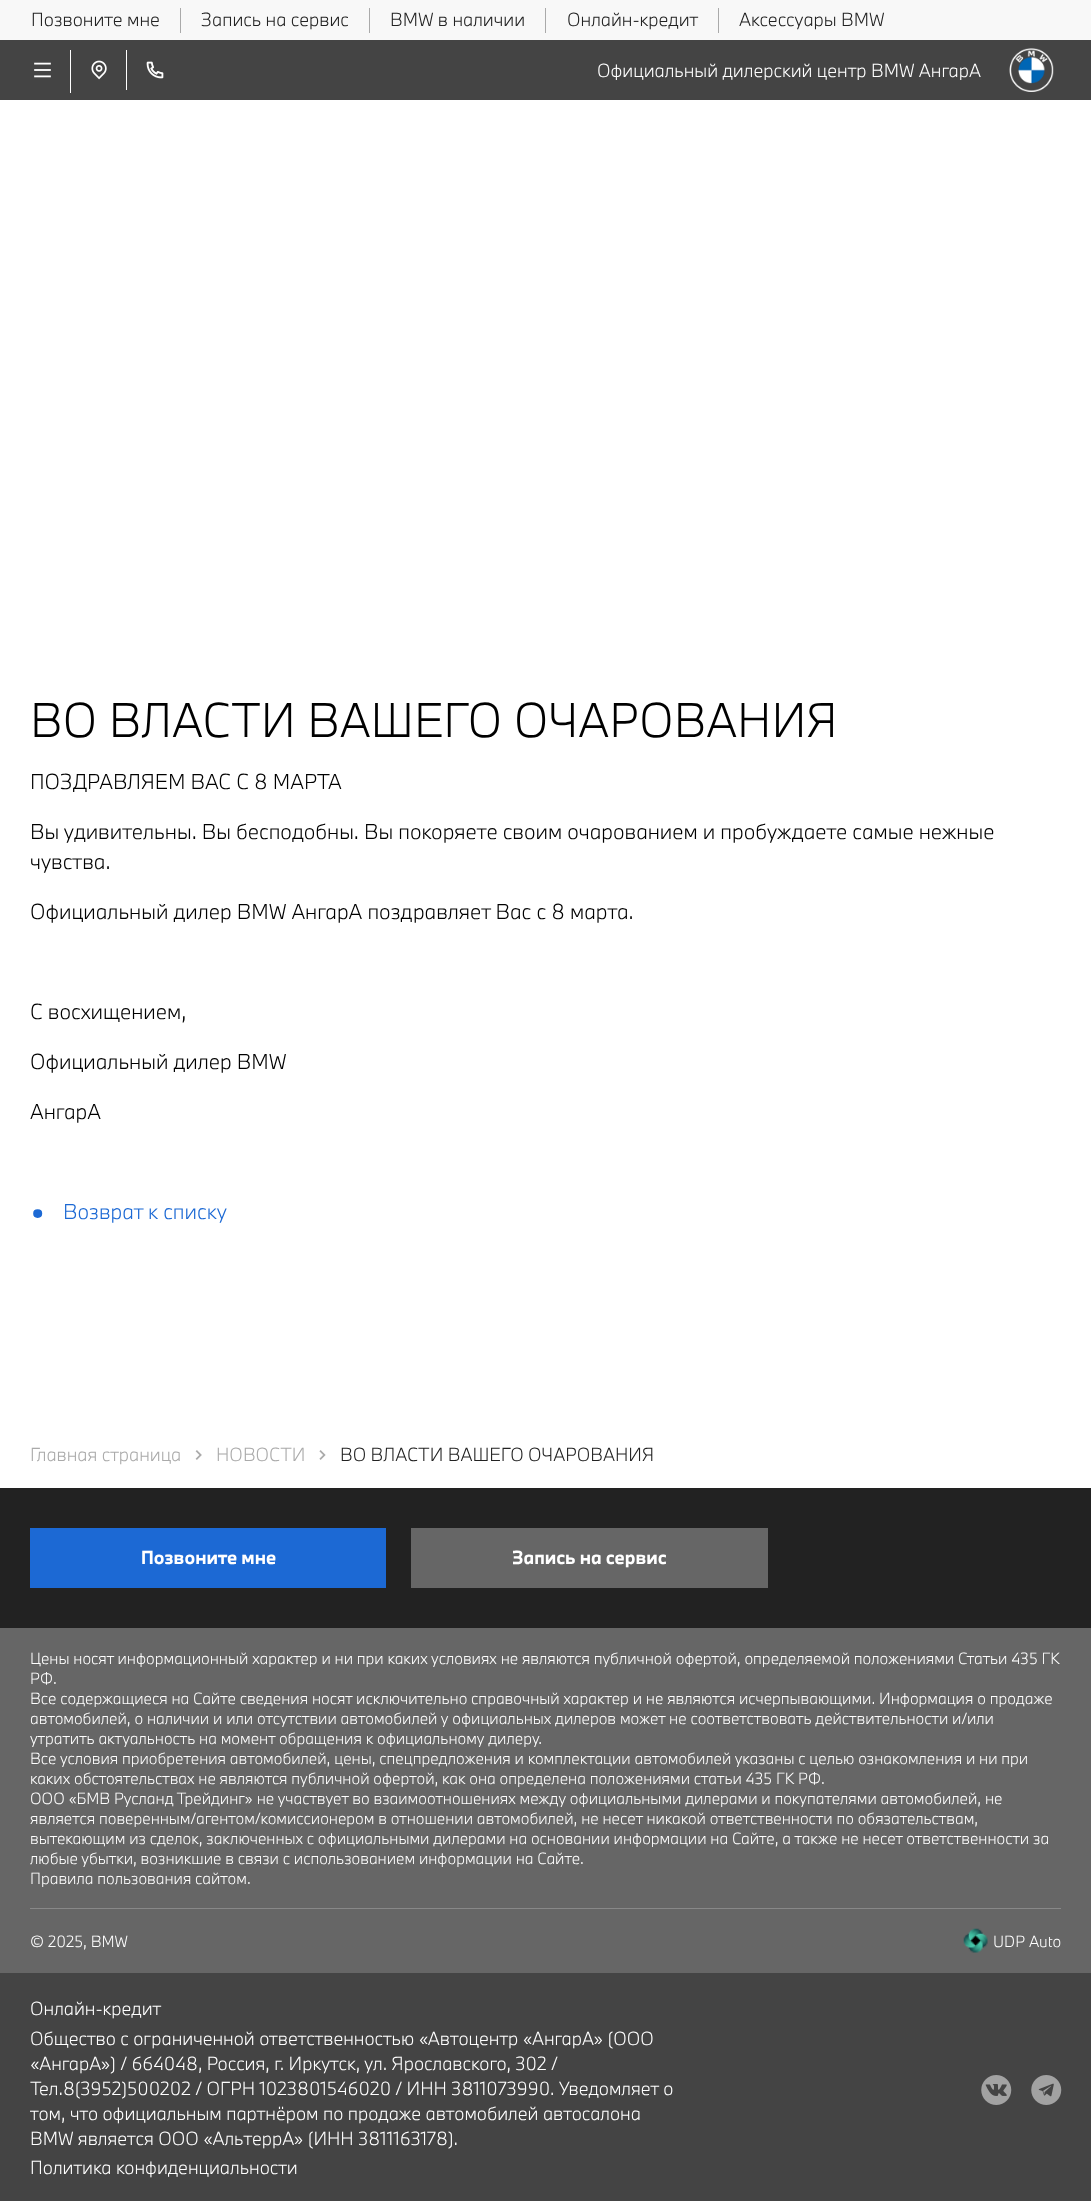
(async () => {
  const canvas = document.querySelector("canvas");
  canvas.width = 1091;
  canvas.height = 2201;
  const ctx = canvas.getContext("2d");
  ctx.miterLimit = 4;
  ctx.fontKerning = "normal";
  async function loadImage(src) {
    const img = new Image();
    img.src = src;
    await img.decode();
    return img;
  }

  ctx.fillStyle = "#ffffff";
  ctx.fillRect(0, 0, 1091, 2201);
  for (const [x, y, w, h, color] of [
    [0, 0, 1091, 40, "#f8f8f8"],
    [180, 8, 1, 25, "#aaaaaa"],
    [369, 8, 1, 25, "#aaaaaa"],
    [545, 8, 1, 25, "#aaaaaa"],
    [718, 8, 1, 25, "#aaaaaa"],
    [0, 40, 1091, 60, "#444444"],
    [70, 50, 1, 43, "#ffffff"],
  ]) {
    ctx.fillStyle = color;
    ctx.fillRect(x, y, w, h);
  }
  ctx.drawImage(await loadImage("img/1.png"), 34, 62, 17, 16);
  ctx.fillRect(126, 50, 1, 40);
  ctx.drawImage(await loadImage("img/2.png"), 91, 60, 16, 20);
  ctx.drawImage(await loadImage("img/3.png"), 146, 61, 18, 18);
  ctx.drawImage(await loadImage("img/4.png"), 1009, 48, 45, 44);
  ctx.drawImage(await loadImage("img/5.png"), 195, 1450, 7, 10);
  ctx.drawImage(await loadImage("img/6.png"), 319, 1450, 7, 10);
  for (const [x, y, w, h, color] of [
    [0, 1488, 1091, 140, "#222222"],
    [30, 1528, 356, 60, "#1c69d4"],
    [411, 1528, 357, 60, "#666666"],
    [0, 1628, 1091, 345, "#666666"],
    [30, 1908, 1031, 1, "#888888"],
  ]) {
    ctx.fillStyle = color;
    ctx.fillRect(x, y, w, h);
  }
  ctx.drawImage(await loadImage("img/7.png"), 963, 1928, 25, 25);
  ctx.fillStyle = "#444444";
  ctx.fillRect(0, 1973, 1091, 228);
  ctx.drawImage(await loadImage("img/8.png"), 981, 2075, 31, 30);
  ctx.drawImage(await loadImage("img/9.png"), 1031, 2075, 31, 30);
  ctx.font = "300 17.5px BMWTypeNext";
  ctx.fillStyle = "#222222";
  for (const [text, x, y] of [
    ["Позвоните мне", 31, 26],
    ["Запись на сервис", 201, 26],
    ["BMW в наличии", 390, 26],
    ["Онлайн-кредит", 567, 26],
    ["Аксессуары BMW", 739, 26],
  ]) {
    ctx.fillText(text, x, y);
  }
  ctx.save();
  ctx.beginPath();
  ctx.rect(598, 60, 383, 20);
  ctx.clip();
  ctx.fillStyle = "#ffffff";
  ctx.fillText("Официальный дилерский центр BMW АнгарА", 597, 77);
  ctx.restore();
  ctx.font = "300 45px BMWTypeNext";
  ctx.fillStyle = "#000000";
  ctx.fillText("ВО ВЛАСТИ ВАШЕГО ОЧАРОВАНИЯ", 30, 737);
  ctx.font = "300 20px BMWTypeNext";
  for (const [text, x, y] of [
    ["ПОЗДРАВЛЯЕМ ВАС С 8 МАРТА", 30, 789],
    ["Вы удивительны. Вы бесподобны. Вы покоряете своим очарованием и пробуждаете самые нежные", 30, 839],
    ["чувства.", 30, 869],
    ["Официальный дилер BMW АнгарА поздравляет Вас с 8 марта.", 30, 919],
    ["C восхищением,", 30, 1019],
    ["Официальный дилер BMW", 30, 1069],
    ["АнгарА", 30, 1119],
  ]) {
    ctx.fillText(text, x, y);
  }
  ctx.font = "300 33px BMWTypeNext";
  ctx.fillStyle = "#1c69d4";
  ctx.fillText("•", 30, 1226);
  ctx.font = "300 20px BMWTypeNext";
  ctx.fillText("Возврат к списку", 63, 1219);
  ctx.font = "300 17.5px BMWTypeNext";
  ctx.fillStyle = "#aaaaaa";
  ctx.fillText("Главная страница", 30, 1461);
  ctx.fillText("НОВОСТИ", 216, 1461);
  ctx.fillStyle = "#222222";
  ctx.fillText("ВО ВЛАСТИ ВАШЕГО ОЧАРОВАНИЯ", 340, 1461);
  ctx.font = "bold 17.5px BMWTypeNext";
  ctx.fillStyle = "#ffffff";
  ctx.fillText("Позвоните мне", 141, 1564);
  ctx.save();
  ctx.beginPath();
  ctx.rect(513, 1545, 153, 25);
  ctx.clip();
  ctx.fillText("Запись на сервис", 512, 1564);
  ctx.restore();
  ctx.font = "300 15px BMWTypeNext";
  for (const [text, x, y] of [
    ["Цены носят информационный характер и ни при каких условиях не являются публичной офертой, определяемой положениями Статьи 435 ГК", 30, 1664],
    ["РФ.", 30, 1684],
    ["Все содержащиеся на Сайте сведения носят исключительно справочный характер и не являются исчерпывающими. Информация о продаже", 30, 1704],
    ["автомобилей, о наличии и или отсутствии автомобилей у официальных дилеров может не соответствовать действительности и/или", 30, 1724],
    ["утратить актуальность на момент обращения к официальному дилеру.", 30, 1744],
    ["Все условия приобретения автомобилей, цены, спецпредложения и комплектации автомобилей указаны с целью ознакомления и ни при", 30, 1764],
    ["каких обстоятельствах не являются публичной офертой, как она определена положениями статьи 435 ГК РФ.", 30, 1784],
    ["ООО «БМВ Русланд Трейдинг» не участвует во взаимоотношениях между официальными дилерами и покупателями автомобилей, не", 30, 1804],
    ["является поверенным/агентом/комиссионером в отношении автомобилей, не несет никакой ответственности по обязательствам,", 30, 1824],
    ["вытекающим из сделок, заключенных с официальными дилерами на основании информации на Сайте, а также не несет ответственности за", 30, 1844],
    ["любые убытки, возникшие в связи с использованием информации на Сайте.", 30, 1864],
    ["Правила пользования сайтом.", 30, 1884],
    ["© 2025, BMW", 30, 1947],
    ["UDP Auto", 993, 1947],
  ]) {
    ctx.fillText(text, x, y);
  }
  ctx.font = "300 17.5px BMWTypeNext";
  for (const [text, x, y] of [
    ["Онлайн-кредит", 30, 2015],
    ["Общество с ограниченной ответственностью «Автоцентр «АнгарА» (ООО", 30, 2045],
    ["«АнгарА») / 664048, Россия, г. Иркутск, ул. Ярославского, 302 /", 30, 2070],
    ["Тел.8(3952)500202 / ОГРН 1023801546020 / ИНН 3811073990. Уведомляет о", 30, 2095],
    ["том, что официальным партнёром по продаже автомобилей автосалона", 30, 2120],
    ["BMW является ООО «АльтеррА» (ИНН 3811163178).", 30, 2145],
    ["Политика конфиденциальности", 30, 2174],
  ]) {
    ctx.fillText(text, x, y);
  }
})();
